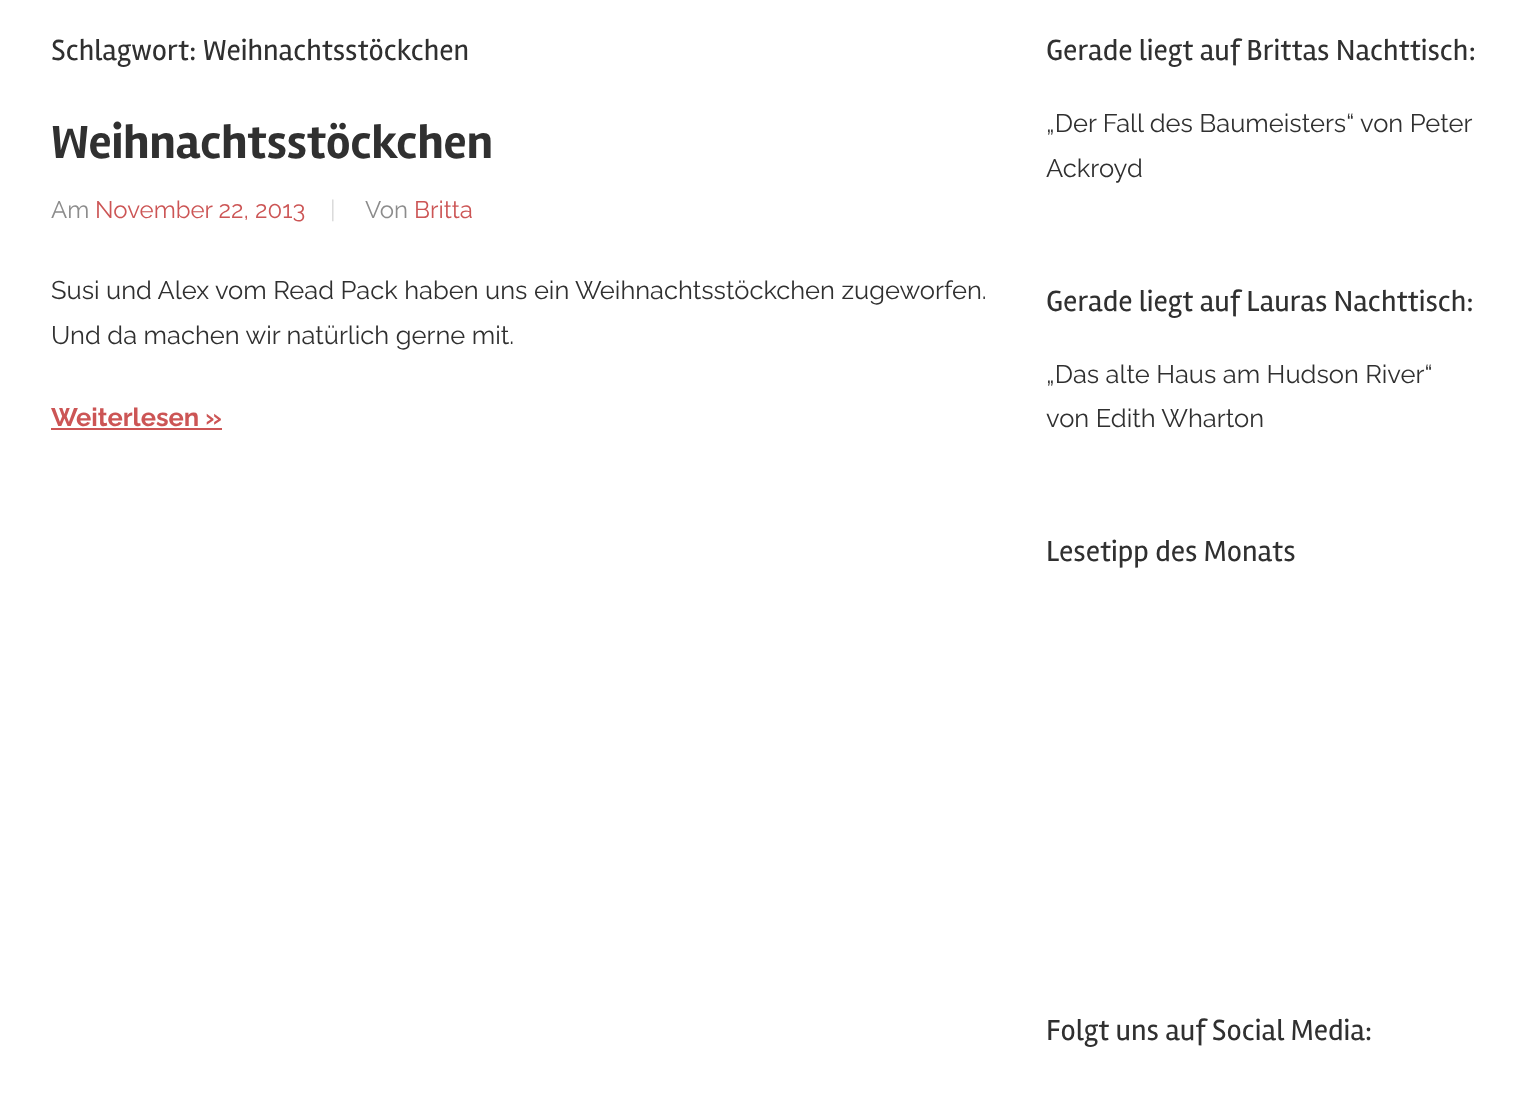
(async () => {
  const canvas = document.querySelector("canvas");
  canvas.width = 1526;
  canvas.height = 1107;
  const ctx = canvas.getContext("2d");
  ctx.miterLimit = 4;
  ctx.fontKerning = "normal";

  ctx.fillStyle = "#ffffff";
  ctx.fillRect(0, 0, 1526, 1107);
  ctx.fillStyle = "#cc5555";
  ctx.fillRect(51, 428, 171, 2);
  ctx.font = "30px Rambla";
  ctx.fillStyle = "#303030";
  ctx.fillText("Schlagwort: Weihnachtsstöckchen", 51, 60);
  ctx.font = "bold 48px Rambla";
  ctx.fillText("Weihnachtsstöckchen", 51, 158);
  ctx.font = "24px Raleway";
  ctx.fillStyle = "#8c8c8c";
  ctx.fillText("Am", 51, 218);
  ctx.fillStyle = "#cc5555";
  ctx.fillText("November 22, 2013", 95, 218);
  ctx.fillStyle = "#d9d9d9";
  ctx.fillText("|", 330, 218);
  ctx.fillStyle = "#8c8c8c";
  ctx.fillText("Von", 365, 218);
  ctx.fillStyle = "#cc5555";
  ctx.fillText("Britta", 414, 218);
  ctx.font = "25.5px Raleway";
  ctx.fillStyle = "#303030";
  ctx.fillText("Susi und Alex vom Read Pack haben uns ein Weihnachtsstöckchen zugeworfen.", 51, 299);
  ctx.fillText("Und da machen wir natürlich gerne mit.", 51, 344);
  ctx.font = "bold 25.5px Raleway";
  ctx.fillStyle = "#cc5555";
  ctx.fillText("Weiterlesen »", 51, 426);
  ctx.font = "30px Rambla";
  ctx.fillStyle = "#303030";
  ctx.fillText("Gerade liegt auf Brittas Nachttisch:", 1046, 60);
  ctx.font = "25.5px Raleway";
  ctx.fillText("„Der Fall des Baumeisters“ von Peter", 1046, 132);
  ctx.fillText("Ackroyd", 1046, 177);
  ctx.font = "30px Rambla";
  ctx.fillText("Gerade liegt auf Lauras Nachttisch:", 1046, 311);
  ctx.font = "25.5px Raleway";
  ctx.fillText("„Das alte Haus am Hudson River“", 1046, 383);
  ctx.fillText("von Edith Wharton", 1046, 427);
  ctx.font = "30px Rambla";
  ctx.fillText("Lesetipp des Monats", 1046, 561);
  ctx.fillText("Folgt uns auf Social Media:", 1046, 1040);
})();
